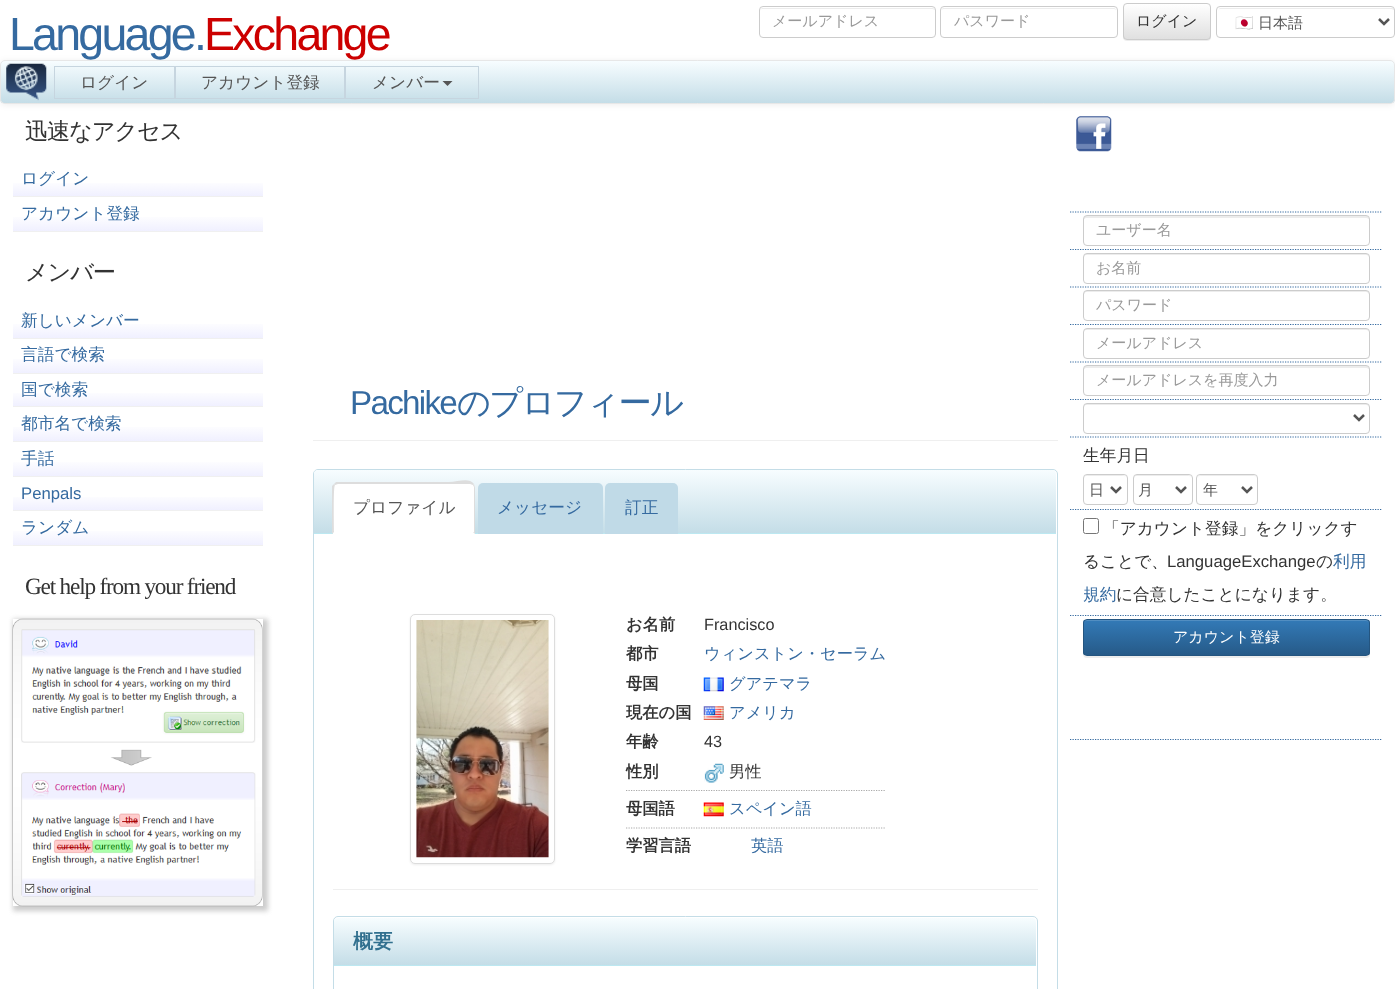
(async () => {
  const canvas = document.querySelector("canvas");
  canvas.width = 1395;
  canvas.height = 989;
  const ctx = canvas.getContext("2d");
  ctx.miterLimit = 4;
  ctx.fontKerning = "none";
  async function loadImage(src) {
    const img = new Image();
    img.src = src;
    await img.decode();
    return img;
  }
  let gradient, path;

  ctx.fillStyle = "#ffffff";
  ctx.fillRect(0, 0, 1395, 989);
  ctx.fillStyle = "#ececec";
  path = new Path2D("M762 9H932C934 9 935 10 935 11C935 9 934 8 932 8H762L761 9L760 11C760 10 761 9 762 9Z");
  ctx.fill(path);
  ctx.beginPath();
  ctx.roundRect(759.5, 6.5, 176, 31, 3.5);
  ctx.strokeStyle = "#cccccc";
  ctx.stroke();
  path = new Path2D("M944 9H1114C1115 9 1116 10 1116 11C1116 9 1115 8 1114 8H943L942 9L941 11C941 10 942 9 944 9Z");
  ctx.fill(path);
  ctx.beginPath();
  ctx.roundRect(940.5, 6.5, 177, 31, 3.5);
  ctx.stroke();
  ctx.fillStyle = "rgba(0, 0, 0, 0.07)";
  ctx.filter = "blur(0.5px)";
  ctx.beginPath();
  ctx.roundRect(1123, 4, 88, 37, 4);
  ctx.fill();
  ctx.filter = "none";
  ctx.save();
  ctx.beginPath();
  ctx.roundRect(1123, 3, 88, 37, 4);
  ctx.clip();
  gradient = ctx.createLinearGradient(1167, 3.7, 1167, 39);
  gradient.addColorStop(0, "#ffffff");
  gradient.addColorStop(1, "#e0e0e0");
  ctx.fillStyle = gradient;
  ctx.fillRect(1123, 4, 88, 35);
  ctx.restore();
  ctx.beginPath();
  ctx.roundRect(1123.5, 3.5, 87, 36, 3.5);
  ctx.stroke();
  ctx.fillStyle = "#ececec";
  path = new Path2D("M1220 9H1391C1393 9 1394 10 1394 11C1394 9 1393 8 1392 8H1220L1219 9L1218 11C1218 10 1219 9 1220 9Z");
  ctx.fill(path);
  ctx.beginPath();
  ctx.roundRect(1216.5, 6.5, 178, 31, 3.5);
  ctx.stroke();
  path = new Path2D("M1379 19L1384 24L1389 19");
  ctx.strokeStyle = "#555555";
  ctx.lineWidth = 2.5;
  ctx.stroke(path);
  ctx.fillStyle = "rgba(0, 0, 0, 0.07)";
  ctx.filter = "blur(3px)";
  ctx.beginPath();
  ctx.roundRect(0, 61, 1395, 44, 5);
  ctx.fill();
  ctx.filter = "none";
  ctx.save();
  ctx.beginPath();
  ctx.roundRect(0, 60, 1395, 44, 5);
  ctx.clip();
  gradient = ctx.createLinearGradient(698, 61, 698, 103);
  gradient.addColorStop(0, "#f7fdff");
  gradient.addColorStop(1, "#c4dde7");
  ctx.fillStyle = gradient;
  ctx.fillRect(0, 61, 1395, 42);
  ctx.restore();
  ctx.beginPath();
  ctx.roundRect(0.5, 60.5, 1394, 43, 4.5);
  ctx.strokeStyle = "#e7e7e7";
  ctx.lineWidth = 1;
  ctx.stroke();
  ctx.drawImage(await loadImage("img/1.png"), 6, 63, 41, 38);
  ctx.strokeStyle = "#c6d5df";
  ctx.strokeRect(54.5, 66.5, 120, 32);
  ctx.strokeRect(175.5, 66.5, 169, 32);
  ctx.strokeRect(345.5, 66.5, 133, 32);
  ctx.fillStyle = "#555555";
  path = new Path2D("M442.5 81H452.5L447.5 86Z");
  ctx.fill(path);
  gradient = ctx.createLinearGradient(138, 196, 138, 164);
  gradient.addColorStop(0, "#f0f0ff");
  gradient.addColorStop(0.5, "#ffffff");
  ctx.fillStyle = gradient;
  ctx.fillRect(13, 183, 250, 13);
  ctx.fillStyle = "#f0f0f0";
  ctx.fillRect(13, 196, 250, 1);
  gradient = ctx.createLinearGradient(138, 231, 138, 198);
  gradient.addColorStop(0, "#f0f0ff");
  gradient.addColorStop(0.5, "#ffffff");
  ctx.fillStyle = gradient;
  ctx.fillRect(13, 217, 250, 14);
  ctx.fillStyle = "#f0f0f0";
  ctx.fillRect(13, 231, 250, 1);
  gradient = ctx.createLinearGradient(138, 338, 138, 304);
  gradient.addColorStop(0, "#f0f0ff");
  gradient.addColorStop(0.5, "#ffffff");
  ctx.fillStyle = gradient;
  ctx.fillRect(13, 324, 250, 14);
  ctx.fillStyle = "#f0f0f0";
  ctx.fillRect(13, 338, 250, 1);
  gradient = ctx.createLinearGradient(138, 373, 138, 339);
  gradient.addColorStop(0, "#f0f0ff");
  gradient.addColorStop(0.5, "#ffffff");
  ctx.fillStyle = gradient;
  ctx.fillRect(13, 359, 250, 14);
  ctx.fillStyle = "#f0f0f0";
  ctx.fillRect(13, 373, 250, 1);
  gradient = ctx.createLinearGradient(138, 406, 138, 374);
  gradient.addColorStop(0, "#f0f0ff");
  gradient.addColorStop(0.5, "#ffffff");
  ctx.fillStyle = gradient;
  ctx.fillRect(13, 393, 250, 13);
  ctx.fillStyle = "#f0f0f0";
  ctx.fillRect(13, 406, 250, 1);
  gradient = ctx.createLinearGradient(138, 441, 138, 408);
  gradient.addColorStop(0, "#f0f0ff");
  gradient.addColorStop(0.5, "#ffffff");
  ctx.fillStyle = gradient;
  ctx.fillRect(13, 427, 250, 14);
  ctx.fillStyle = "#f0f0f0";
  ctx.fillRect(13, 441, 250, 1);
  gradient = ctx.createLinearGradient(138, 476, 138, 443);
  gradient.addColorStop(0, "#f0f0ff");
  gradient.addColorStop(0.5, "#ffffff");
  ctx.fillStyle = gradient;
  ctx.fillRect(13, 462, 250, 14);
  ctx.fillStyle = "#f0f0f0";
  ctx.fillRect(13, 476, 250, 1);
  gradient = ctx.createLinearGradient(138, 510, 138, 478);
  gradient.addColorStop(0, "#f0f0ff");
  gradient.addColorStop(0.5, "#ffffff");
  ctx.fillStyle = gradient;
  ctx.fillRect(13, 497, 250, 13);
  ctx.fillStyle = "#f0f0f0";
  ctx.fillRect(13, 510, 250, 1);
  gradient = ctx.createLinearGradient(138, 545, 138, 511);
  gradient.addColorStop(0, "#f0f0ff");
  gradient.addColorStop(0.5, "#ffffff");
  ctx.fillStyle = gradient;
  ctx.fillRect(13, 531, 250, 14);
  ctx.fillStyle = "#f0f0f0";
  ctx.fillRect(13, 545, 250, 1);
  ctx.save();
  path = new Path2D("M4 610H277V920H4ZM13 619H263V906H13Z");
  ctx.clip(path, "evenodd");
  ctx.fillStyle = "#cccccc";
  ctx.filter = "blur(2.5px)";
  ctx.beginPath();
  ctx.rect(13, 619, 255, 292);
  ctx.fill();
  ctx.filter = "none";
  ctx.restore();
  ctx.drawImage(await loadImage("img/2.png"), 12, 618, 251, 289);
  ctx.fillStyle = "#efefef";
  ctx.fillRect(313, 440, 745, 1);
  ctx.beginPath();
  ctx.roundRect(313.5, 469.5, 744, 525, 4.5);
  ctx.strokeStyle = "#c4dde7";
  ctx.stroke();
  gradient = ctx.createLinearGradient(685, 470, 685, 533);
  gradient.addColorStop(0, "#f7fdff");
  gradient.addColorStop(1, "#c4dde7");
  ctx.fillStyle = gradient;
  ctx.beginPath();
  ctx.roundRect(314, 470, 742, 63, [4, 4, 0, 0]);
  ctx.fill();
  ctx.fillStyle = "#bce8f1";
  ctx.fillRect(314, 533, 742, 1);
  ctx.fillStyle = "#ffffff";
  ctx.beginPath();
  ctx.roundRect(333, 483, 142, 51, [5, 5, 0, 0]);
  ctx.fill();
  ctx.fillStyle = "#dddddd";
  path = new Path2D("M338 484L335 485L334 484L336 482H449C458 482 469 477 474 484L473 485L470 484Z");
  ctx.fill(path);
  path = new Path2D("M475 534V488C475 486 474 485 474 484L473 485L474 487V532H473Z");
  ctx.fill(path);
  path = new Path2D("M332 534V486L334 484L335 485C333 487 334 526 334 532Z");
  ctx.fill(path);
  ctx.fillStyle = "#c0dae7";
  ctx.beginPath();
  ctx.roundRect(478, 483, 125, 51, [5, 5, 0, 0]);
  ctx.fill();
  ctx.beginPath();
  ctx.roundRect(605, 483, 73, 51, [5, 5, 0, 0]);
  ctx.fill();
  ctx.fillStyle = "rgba(0, 0, 0, 0.07)";
  ctx.filter = "blur(1px)";
  ctx.beginPath();
  ctx.roundRect(410, 615, 145, 250, 5);
  ctx.fill();
  ctx.filter = "none";
  ctx.fillStyle = "#ffffff";
  ctx.beginPath();
  ctx.roundRect(410.5, 614.5, 144, 249, 4.5);
  ctx.fill();
  ctx.strokeStyle = "#dddddd";
  ctx.stroke();
  ctx.drawImage(await loadImage("img/3.png"), 416, 620, 133, 238);
  ctx.drawImage(await loadImage("img/4.png"), 703, 677, 21, 15);
  ctx.drawImage(await loadImage("img/5.png"), 703, 706, 21, 14);
  ctx.drawImage(await loadImage("img/6.png"), 704, 763, 20, 20);
  path = new Path2D("M626 790.5H886");
  ctx.strokeStyle = "#aaaaaa";
  ctx.lineWidth = 1.2;
  ctx.setLineDash([1.25, 1.25]);
  ctx.stroke(path);
  ctx.drawImage(await loadImage("img/7.png"), 703, 802, 21, 15);
  path = new Path2D("M626 828H886");
  ctx.stroke(path);
  ctx.fillStyle = "#efefef";
  ctx.fillRect(333, 889, 705, 1);
  ctx.beginPath();
  ctx.roundRect(333.5, 916.5, 704, 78, 4.5);
  ctx.strokeStyle = "#c4dde7";
  ctx.lineWidth = 1;
  ctx.setLineDash([]);
  ctx.stroke();
  gradient = ctx.createLinearGradient(685, 918, 685, 965);
  gradient.addColorStop(0, "#f7fdff");
  gradient.addColorStop(1, "#c4dde7");
  ctx.fillStyle = gradient;
  ctx.beginPath();
  ctx.roundRect(334, 918, 702, 47, [4, 4, 0, 0]);
  ctx.fill();
  ctx.fillStyle = "#bce8f1";
  ctx.fillRect(334, 965, 702, 1);
  ctx.drawImage(await loadImage("img/8.png"), 1076, 116, 36, 36);
  path = new Path2D("M1070 212H1382.5");
  ctx.strokeStyle = "#356aa0";
  ctx.lineWidth = 1.2;
  ctx.setLineDash([1.25, 1.25]);
  ctx.stroke(path);
  ctx.fillStyle = "#ececec";
  path = new Path2D("M1086 218H1366C1368 218 1369 219 1369 220C1369 218 1369 216 1366 216H1086C1084 216 1084 218 1084 220C1084 219 1085 218 1086 218Z");
  ctx.fill(path);
  ctx.beginPath();
  ctx.roundRect(1083.5, 215.5, 286, 30, 3.5);
  ctx.strokeStyle = "#cccccc";
  ctx.lineWidth = 1;
  ctx.setLineDash([]);
  ctx.stroke();
  path = new Path2D("M1070 249.5H1382.5");
  ctx.strokeStyle = "#356aa0";
  ctx.lineWidth = 1.2;
  ctx.setLineDash([1.25, 1.25]);
  ctx.stroke(path);
  path = new Path2D("M1086 255H1366C1368 255 1369 256 1369 258C1369 256 1369 254 1366 254H1086C1084 254 1084 256 1084 258C1084 256 1085 255 1086 255Z");
  ctx.fill(path);
  ctx.beginPath();
  ctx.roundRect(1083.5, 253.5, 286, 30, 3.5);
  ctx.strokeStyle = "#cccccc";
  ctx.lineWidth = 1;
  ctx.setLineDash([]);
  ctx.stroke();
  path = new Path2D("M1070 287H1382.5");
  ctx.strokeStyle = "#356aa0";
  ctx.lineWidth = 1.2;
  ctx.setLineDash([1.25, 1.25]);
  ctx.stroke(path);
  path = new Path2D("M1086 292H1366C1368 292 1369 294 1369 295C1369 293 1369 291 1366 291H1086C1084 291 1084 293 1084 295C1084 294 1085 292 1086 292Z");
  ctx.fill(path);
  ctx.beginPath();
  ctx.roundRect(1083.5, 290.5, 286, 30, 3.5);
  ctx.strokeStyle = "#cccccc";
  ctx.lineWidth = 1;
  ctx.setLineDash([]);
  ctx.stroke();
  path = new Path2D("M1070 324.5H1382.5");
  ctx.strokeStyle = "#356aa0";
  ctx.lineWidth = 1.2;
  ctx.setLineDash([1.25, 1.25]);
  ctx.stroke(path);
  path = new Path2D("M1086 330H1366C1368 330 1369 331 1369 332C1369 330 1368 329 1366 329H1086C1085 329 1084 330 1084 332C1084 331 1085 330 1086 330Z");
  ctx.fill(path);
  ctx.beginPath();
  ctx.roundRect(1083.5, 328.5, 286, 30, 3.5);
  ctx.strokeStyle = "#cccccc";
  ctx.lineWidth = 1;
  ctx.setLineDash([]);
  ctx.stroke();
  path = new Path2D("M1070 362H1382.5");
  ctx.strokeStyle = "#356aa0";
  ctx.lineWidth = 1.2;
  ctx.setLineDash([1.25, 1.25]);
  ctx.stroke(path);
  path = new Path2D("M1086 368H1366C1368 368 1369 369 1369 370C1369 368 1369 366 1366 366H1086C1084 366 1084 368 1084 370C1084 369 1085 368 1086 368Z");
  ctx.fill(path);
  ctx.beginPath();
  ctx.roundRect(1083.5, 365.5, 286, 30, 3.5);
  ctx.strokeStyle = "#cccccc";
  ctx.lineWidth = 1;
  ctx.setLineDash([]);
  ctx.stroke();
  path = new Path2D("M1070 399.5H1382.5");
  ctx.strokeStyle = "#356aa0";
  ctx.lineWidth = 1.2;
  ctx.setLineDash([1.25, 1.25]);
  ctx.stroke(path);
  path = new Path2D("M1086 405H1366C1368 405 1369 406 1369 408C1369 406 1369 404 1366 404H1086C1084 404 1084 406 1084 408C1084 406 1085 405 1086 405Z");
  ctx.fill(path);
  ctx.beginPath();
  ctx.roundRect(1083.5, 403.5, 286, 30, 3.5);
  ctx.strokeStyle = "#cccccc";
  ctx.lineWidth = 1;
  ctx.setLineDash([]);
  ctx.stroke();
  path = new Path2D("M1354 415L1359 420L1364 415");
  ctx.strokeStyle = "#555555";
  ctx.lineWidth = 2.5;
  ctx.stroke(path);
  path = new Path2D("M1070 437H1382.5");
  ctx.strokeStyle = "#356aa0";
  ctx.lineWidth = 1.2;
  ctx.setLineDash([1.25, 1.25]);
  ctx.stroke(path);
  path = new Path2D("M1086 476H1124C1125 476 1126 477 1126 479C1126 474 1122 475 1117 475H1093C1088 475 1084 474 1084 479C1084 477 1085 476 1086 476Z");
  ctx.fill(path);
  ctx.beginPath();
  ctx.roundRect(1083.5, 474.5, 44, 30, 3.5);
  ctx.strokeStyle = "#cccccc";
  ctx.lineWidth = 1;
  ctx.setLineDash([]);
  ctx.stroke();
  path = new Path2D("M1111 487L1116 492L1121 487");
  ctx.strokeStyle = "#555555";
  ctx.lineWidth = 2.5;
  ctx.stroke(path);
  path = new Path2D("M1136 476H1189C1190 476 1191 477 1191 479C1191 473 1185 475 1180 475H1145C1140 475 1134 473 1134 479C1134 477 1135 476 1136 476Z");
  ctx.fill(path);
  ctx.beginPath();
  ctx.roundRect(1133.5, 474.5, 59, 30, 3.5);
  ctx.strokeStyle = "#cccccc";
  ctx.lineWidth = 1;
  ctx.stroke();
  path = new Path2D("M1176 487L1181 492L1186 487");
  ctx.strokeStyle = "#555555";
  ctx.lineWidth = 2.5;
  ctx.stroke(path);
  path = new Path2D("M1200 476H1254C1255 476 1256 477 1256 479C1256 473 1250 475 1245 475H1209C1204 475 1198 473 1198 479C1198 477 1199 476 1200 476Z");
  ctx.fill(path);
  ctx.beginPath();
  ctx.roundRect(1196.5, 474.5, 61, 30, 3.5);
  ctx.strokeStyle = "#cccccc";
  ctx.lineWidth = 1;
  ctx.stroke();
  path = new Path2D("M1242 487L1247 492L1252 487");
  ctx.strokeStyle = "#555555";
  ctx.lineWidth = 2.5;
  ctx.stroke(path);
  path = new Path2D("M1070 509.5H1382.5");
  ctx.strokeStyle = "#356aa0";
  ctx.lineWidth = 1.2;
  ctx.setLineDash([1.25, 1.25]);
  ctx.stroke(path);
  ctx.beginPath();
  ctx.roundRect(1083.5, 518.5, 15, 15, 2);
  ctx.strokeStyle = "#767676";
  ctx.lineWidth = 1;
  ctx.setLineDash([]);
  ctx.stroke();
  path = new Path2D("M1070 615.5H1382.5");
  ctx.strokeStyle = "#356aa0";
  ctx.lineWidth = 1.2;
  ctx.setLineDash([1.25, 1.25]);
  ctx.stroke(path);
  ctx.fillStyle = "rgba(0, 0, 0, 0.07)";
  ctx.filter = "blur(0.5px)";
  ctx.beginPath();
  ctx.roundRect(1083, 620, 287, 38, 4);
  ctx.fill();
  ctx.filter = "none";
  ctx.save();
  ctx.beginPath();
  ctx.roundRect(1083, 619, 287, 37, 4);
  ctx.clip();
  gradient = ctx.createLinearGradient(1226, 620, 1226, 655);
  gradient.addColorStop(0, "#337ab7");
  gradient.addColorStop(1, "#265a88");
  ctx.fillStyle = gradient;
  ctx.fillRect(1083, 620, 287, 35);
  ctx.restore();
  ctx.fillStyle = "#528ec1";
  path = new Path2D("M1086 621H1366C1368 621 1369 622 1369 624C1369 622 1369 620 1366 620H1086C1084 620 1084 622 1084 624C1084 622 1085 621 1086 621Z");
  ctx.fill(path);
  ctx.beginPath();
  ctx.roundRect(1083.5, 619.5, 286, 36, 3.5);
  ctx.strokeStyle = "#245580";
  ctx.lineWidth = 1;
  ctx.setLineDash([]);
  ctx.stroke();
  path = new Path2D("M1070 739.5H1382.5");
  ctx.strokeStyle = "#356aa0";
  ctx.lineWidth = 1.2;
  ctx.setLineDash([1.25, 1.25]);
  ctx.stroke(path);
  ctx.letterSpacing = "-2.75px";
  ctx.font = "46.5px Liberation Sans";
  ctx.fillStyle = "#356aa0";
  ctx.fillText("Language.", 9, 50);
  ctx.fillStyle = "#cc0000";
  ctx.fillText("Exchange", 204, 50);
  ctx.letterSpacing = "0px";
  ctx.font = "500 15px WenQuanYi Zen Hei";
  ctx.fillStyle = "#999999";
  ctx.fillText("メールアドレス", 772, 26);
  ctx.fillText("パスワード", 954, 26);
  ctx.fillStyle = "#333333";
  ctx.fillText("ログイン", 1136, 26);
  ctx.font = "15px Noto Color Emoji";
  ctx.fillStyle = "#555555";
  ctx.fillText("🇯🇵", 1235, 28);
  ctx.font = "500 15px WenQuanYi Zen Hei";
  ctx.fillText("日本語", 1258, 28);
  ctx.font = "500 16.7px WenQuanYi Zen Hei";
  for (const [text, x, y] of [
    ["ログイン", 80, 88],
    ["アカウント登録", 201, 88],
    ["メンバー", 372, 88],
  ]) {
    ctx.fillText(text, x, y);
  }
  ctx.letterSpacing = "-1.2px";
  ctx.font = "500 23.25px WenQuanYi Zen Hei";
  ctx.fillStyle = "#333333";
  ctx.fillText("迅速なアクセス", 25, 139);
  ctx.letterSpacing = "0px";
  ctx.font = "500 16.7px WenQuanYi Zen Hei";
  ctx.fillStyle = "#356aa0";
  ctx.fillText("ログイン", 21, 184);
  ctx.fillText("アカウント登録", 21, 219);
  ctx.letterSpacing = "-1.2px";
  ctx.font = "500 23.25px WenQuanYi Zen Hei";
  ctx.fillStyle = "#333333";
  ctx.fillText("メンバー", 25, 280);
  ctx.letterSpacing = "0px";
  ctx.font = "500 16.7px WenQuanYi Zen Hei";
  ctx.fillStyle = "#356aa0";
  for (const [text, x, y] of [
    ["新しいメンバー", 21, 326],
    ["言語で検索", 21, 360],
    ["国で検索", 21, 395],
    ["都市名で検索", 21, 429],
    ["手話", 21, 464],
  ]) {
    ctx.fillText(text, x, y);
  }
  ctx.font = "16.7px Liberation Sans";
  ctx.fillText("Penpals", 21, 499);
  ctx.font = "500 16.7px WenQuanYi Zen Hei";
  ctx.fillText("ランダム", 21, 533);
  ctx.letterSpacing = "-1.2px";
  ctx.font = "23.25px Liberation Serif";
  ctx.fillStyle = "#333333";
  ctx.fillText("Get help from your friend", 25, 594);
  ctx.letterSpacing = "-1.75px";
  ctx.font = "33.25px Liberation Sans";
  ctx.fillStyle = "#356aa0";
  ctx.fillText("Pachike", 350, 414);
  ctx.font = "500 33.25px WenQuanYi Zen Hei";
  ctx.fillText("のプロフィール", 457, 414);
  ctx.letterSpacing = "0px";
  ctx.font = "500 16.7px WenQuanYi Zen Hei";
  ctx.fillStyle = "#555555";
  ctx.fillText("プロファイル", 353, 513);
  ctx.fillStyle = "#356aa0";
  ctx.fillText("メッセージ", 497, 513);
  ctx.fillText("訂正", 625, 513);
  ctx.font = "bold 16.25px WenQuanYi Zen Hei";
  ctx.fillStyle = "#333333";
  ctx.fillText("お名前", 626, 630);
  ctx.font = "16.25px Liberation Sans";
  ctx.fillText("Francisco", 704, 630);
  ctx.font = "bold 16.25px WenQuanYi Zen Hei";
  ctx.fillText("都市", 626, 659);
  ctx.font = "500 16.25px WenQuanYi Zen Hei";
  ctx.fillStyle = "#356aa0";
  ctx.fillText("ウィンストン・セーラム", 704, 659);
  ctx.font = "bold 16.25px WenQuanYi Zen Hei";
  ctx.fillStyle = "#333333";
  ctx.fillText("母国", 626, 689);
  ctx.font = "500 16.25px WenQuanYi Zen Hei";
  ctx.fillStyle = "#356aa0";
  ctx.fillText("グアテマラ", 729, 689);
  ctx.font = "bold 16.25px WenQuanYi Zen Hei";
  ctx.fillStyle = "#333333";
  ctx.fillText("現在の国", 626, 718);
  ctx.font = "500 16.25px WenQuanYi Zen Hei";
  ctx.fillStyle = "#356aa0";
  ctx.fillText("アメリカ", 729, 718);
  ctx.font = "bold 16.25px WenQuanYi Zen Hei";
  ctx.fillStyle = "#333333";
  ctx.fillText("年齢", 626, 747);
  ctx.font = "16.25px Liberation Sans";
  ctx.fillText("43", 704, 747);
  ctx.font = "bold 16.25px WenQuanYi Zen Hei";
  ctx.fillText("性別", 626, 777);
  ctx.font = "500 16.25px WenQuanYi Zen Hei";
  ctx.fillText("男性", 729, 777);
  ctx.font = "bold 16.25px WenQuanYi Zen Hei";
  ctx.fillText("母国語", 626, 814);
  ctx.font = "500 16.25px WenQuanYi Zen Hei";
  ctx.fillStyle = "#356aa0";
  ctx.fillText("スペイン語", 729, 814);
  ctx.font = "bold 16.25px WenQuanYi Zen Hei";
  ctx.fillStyle = "#333333";
  ctx.fillText("学習言語", 626, 851);
  ctx.font = "500 16.25px WenQuanYi Zen Hei";
  ctx.fillStyle = "#356aa0";
  ctx.fillText("英語", 751, 851);
  ctx.font = "bold 20px WenQuanYi Zen Hei";
  ctx.fillStyle = "#31708f";
  ctx.fillText("概要", 353, 948);
  ctx.font = "500 15px WenQuanYi Zen Hei";
  ctx.fillStyle = "#999999";
  for (const [text, x, y] of [
    ["ユーザー名", 1096, 235],
    ["お名前", 1096, 273],
    ["パスワード", 1096, 310],
    ["メールアドレス", 1096, 348],
    ["メールアドレスを再度入力", 1096, 385],
  ]) {
    ctx.fillText(text, x, y);
  }
  ctx.font = "500 16.7px WenQuanYi Zen Hei";
  ctx.fillStyle = "#333333";
  ctx.fillText("生年月日", 1083, 461);
  ctx.font = "500 15px WenQuanYi Zen Hei";
  ctx.fillStyle = "#555555";
  for (const [text, x, y] of [
    ["日", 1089, 495],
    ["月", 1138, 495],
    ["年", 1203, 495],
  ]) {
    ctx.fillText(text, x, y);
  }
  ctx.font = "500 16.7px WenQuanYi Zen Hei";
  ctx.fillStyle = "#333333";
  ctx.fillText("「アカウント登録」をクリックす", 1103, 534);
  ctx.fillText("ることで、", 1083, 567);
  ctx.font = "16.7px Liberation Sans";
  ctx.fillText("LanguageExchange", 1167, 567);
  ctx.font = "500 16.7px WenQuanYi Zen Hei";
  ctx.fillText("の", 1316, 567);
  ctx.fillStyle = "#356aa0";
  ctx.fillText("利用", 1333, 567);
  ctx.fillText("規約", 1083, 600);
  ctx.fillStyle = "#333333";
  ctx.fillText("に合意したことになります。", 1116, 600);
  ctx.font = "500 15px WenQuanYi Zen Hei";
  ctx.fillStyle = "#ffffff";
  ctx.fillText("アカウント登録", 1173, 642);
})();
